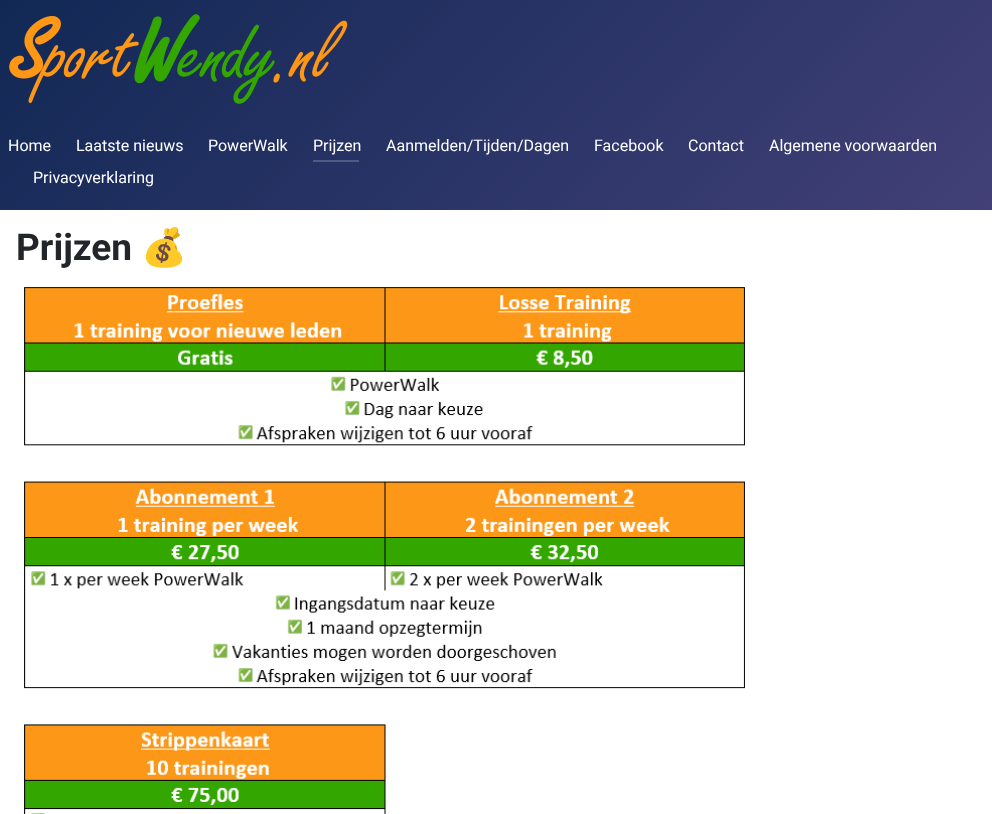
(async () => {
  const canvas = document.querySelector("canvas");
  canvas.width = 992;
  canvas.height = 814;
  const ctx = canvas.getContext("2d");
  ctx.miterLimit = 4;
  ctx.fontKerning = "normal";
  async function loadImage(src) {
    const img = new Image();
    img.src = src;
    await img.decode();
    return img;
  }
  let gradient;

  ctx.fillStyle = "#ffffff";
  ctx.fillRect(0, 0, 992, 814);
  gradient = ctx.createLinearGradient(195, -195, 797, 406);
  gradient.addColorStop(0, "#112855");
  gradient.addColorStop(1, "#424077");
  ctx.fillStyle = gradient;
  ctx.fillRect(0, 0, 992, 210);
  ctx.drawImage(await loadImage("img/1.png"), 9, 14, 339, 90);
  ctx.fillStyle = "#515b82";
  ctx.fillRect(313, 160, 46, 2);
  ctx.drawImage(await loadImage("img/2.png"), 24, 287, 721, 527);
  ctx.font = "16px Roboto";
  ctx.fillStyle = "#ffffff";
  for (const [text, x, y] of [
    ["Home", 8, 151],
    ["Laatste nieuws", 76, 151],
    ["PowerWalk", 208, 151],
    ["Prijzen", 313, 151],
    ["Aanmelden/Tijden/Dagen", 386, 151],
    ["Facebook", 594, 151],
    ["Contact", 688, 151],
    ["Algemene voorwaarden", 769, 151],
    ["Privacyverklaring", 33, 183],
  ]) {
    ctx.fillText(text, x, y);
  }
  ctx.font = "bold 37px Roboto";
  ctx.fillStyle = "#22262a";
  ctx.fillText("Prijzen", 16, 260);
  ctx.font = "bold 37px Noto Color Emoji";
  ctx.fillText("💰", 141, 260);
})();
